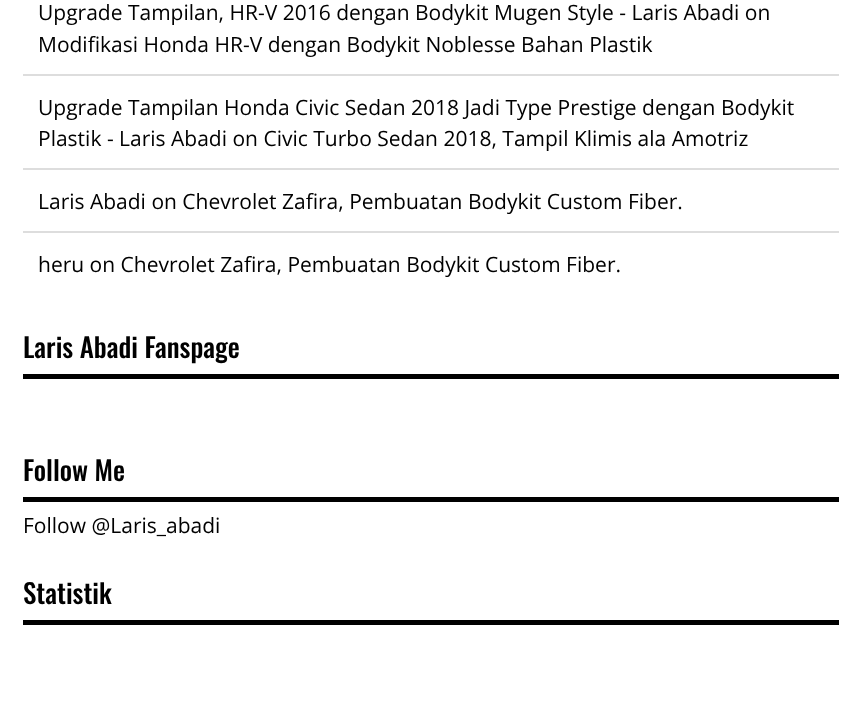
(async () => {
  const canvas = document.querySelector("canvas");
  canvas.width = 860;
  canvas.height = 706;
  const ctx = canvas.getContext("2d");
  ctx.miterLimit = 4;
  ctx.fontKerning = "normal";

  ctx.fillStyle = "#ffffff";
  ctx.fillRect(0, 0, 860, 706);
  for (const [x, y, w, h, color] of [
    [23, 74, 816, 2, "#dddddd"],
    [23, 168, 816, 2, "#dddddd"],
    [23, 231, 816, 2, "#dddddd"],
    [23, 374, 816, 5, "#000000"],
    [23, 497, 816, 5, "#000000"],
    [23, 620, 816, 5, "#000000"],
  ]) {
    ctx.fillStyle = color;
    ctx.fillRect(x, y, w, h);
  }
  ctx.font = "21px Open Sans";
  for (const [text, x, y] of [
    ["Upgrade Tampilan, HR-V 2016 dengan Bodykit Mugen Style - Laris Abadi on", 38, 20],
    ["Modifikasi Honda HR-V dengan Bodykit Noblesse Bahan Plastik", 38, 52],
    ["Upgrade Tampilan Honda Civic Sedan 2018 Jadi Type Prestige dengan Bodykit", 38, 115],
    ["Plastik - Laris Abadi on Civic Turbo Sedan 2018, Tampil Klimis ala Amotriz", 38, 146],
    ["Laris Abadi on Chevrolet Zafira, Pembuatan Bodykit Custom Fiber.", 38, 209],
    ["heru on Chevrolet Zafira, Pembuatan Bodykit Custom Fiber.", 38, 272],
  ]) {
    ctx.fillText(text, x, y);
  }
  ctx.font = "500 27px Oswald";
  ctx.fillText("Laris Abadi Fanspage", 23, 358);
  ctx.fillText("Follow Me", 23, 481);
  ctx.font = "21px Open Sans";
  ctx.fillText("Follow @Laris_abadi", 23, 533);
  ctx.font = "500 27px Oswald";
  ctx.fillText("Statistik", 23, 604);
})();
